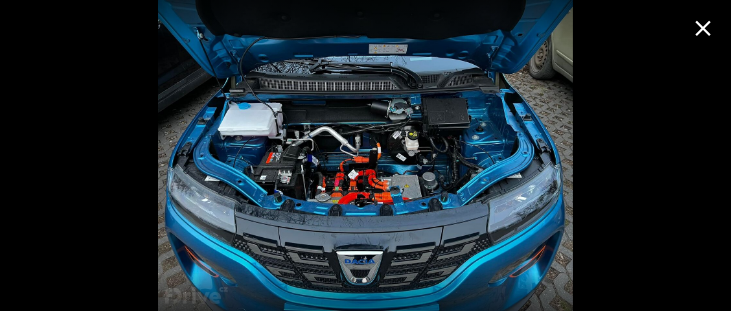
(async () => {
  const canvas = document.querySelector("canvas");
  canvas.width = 731;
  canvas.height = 311;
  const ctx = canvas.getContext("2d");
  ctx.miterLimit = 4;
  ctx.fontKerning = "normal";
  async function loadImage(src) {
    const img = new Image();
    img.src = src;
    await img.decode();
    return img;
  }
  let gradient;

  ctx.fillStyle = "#000000";
  ctx.fillRect(0, 0, 731, 311);
  ctx.drawImage(await loadImage("img/1.png"), 158, 0, 415, 311);
  gradient = ctx.createLinearGradient(366, 0, 366, 40);
  gradient.addColorStop(0, "rgba(0, 0, 0, 0.5)");
  gradient.addColorStop(1, "rgba(0, 0, 0, 0)");
  ctx.fillStyle = gradient;
  ctx.fillRect(158, 0, 415, 38);
  gradient = ctx.createLinearGradient(366, 271, 366, 311);
  gradient.addColorStop(0, "rgba(0, 0, 0, 0)");
  gradient.addColorStop(1, "rgba(0, 0, 0, 0.5)");
  ctx.fillStyle = gradient;
  ctx.fillRect(158, 273, 415, 38);
  ctx.drawImage(await loadImage("img/2.png"), 695, 20, 16, 16);
})();
